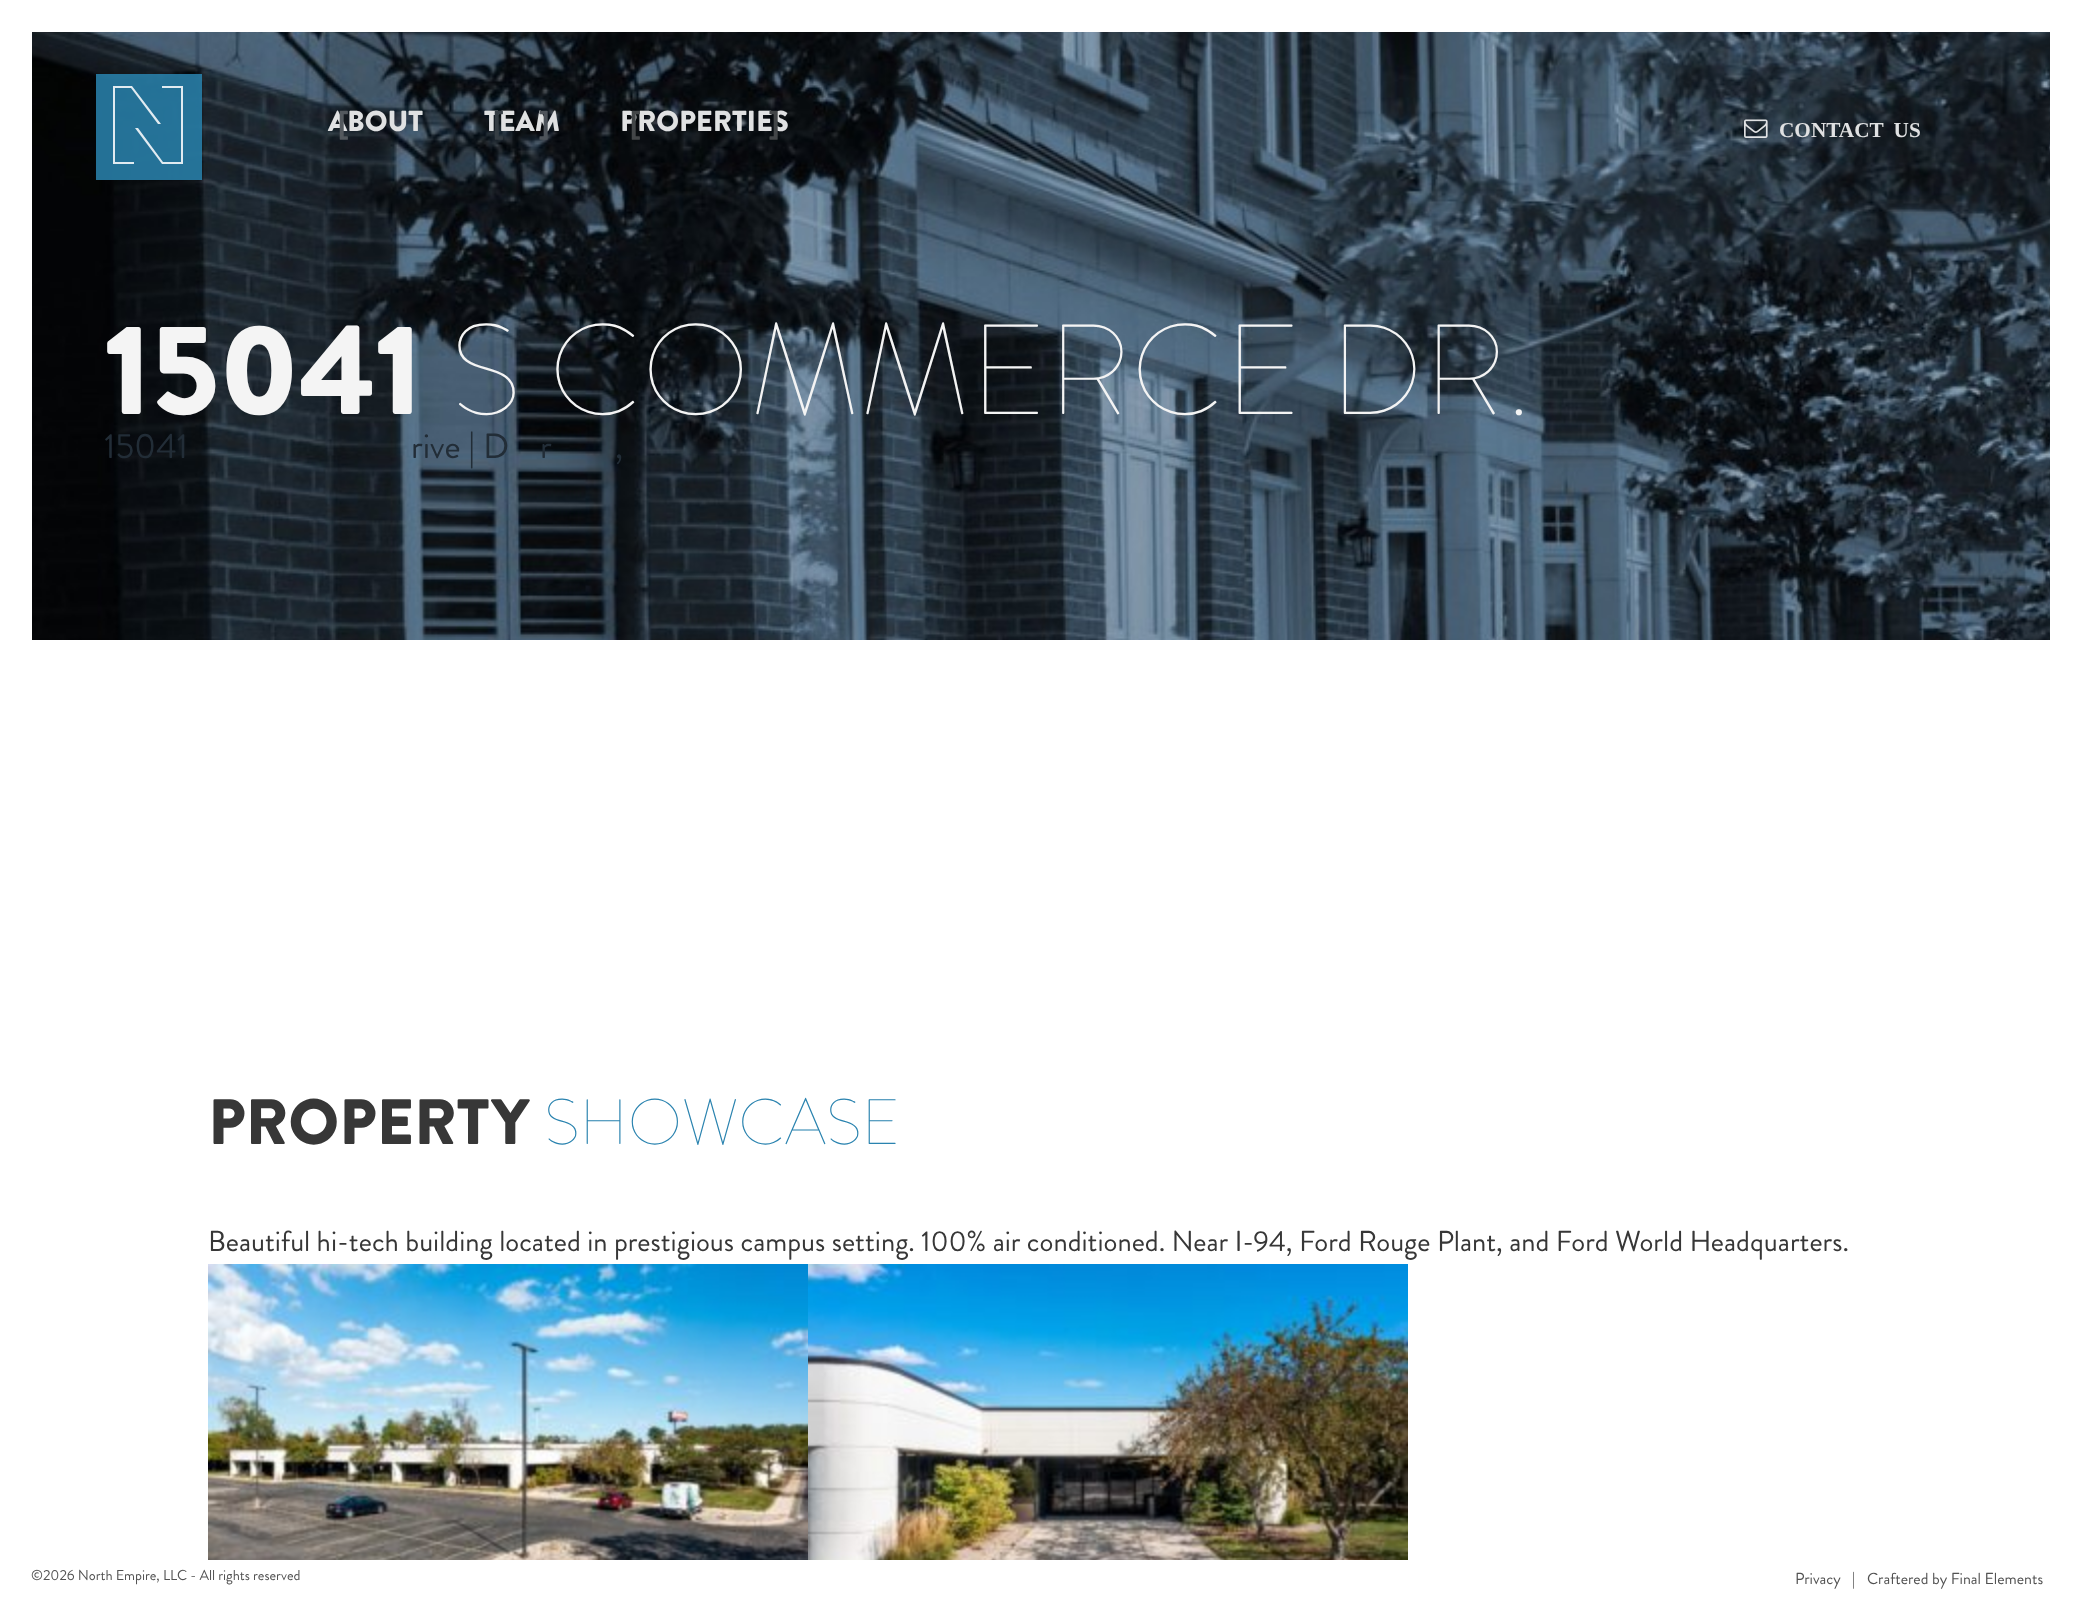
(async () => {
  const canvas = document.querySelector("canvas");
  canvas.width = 2082;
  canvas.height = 1607;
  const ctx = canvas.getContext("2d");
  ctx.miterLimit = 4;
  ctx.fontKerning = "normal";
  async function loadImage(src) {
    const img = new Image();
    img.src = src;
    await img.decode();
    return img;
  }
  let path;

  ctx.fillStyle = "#ffffff";
  ctx.fillRect(0, 0, 2082, 1607);
  ctx.drawImage(await loadImage("img/2.png"), 32, 32, 2018, 608);
  ctx.fillStyle = "rgba(42, 131, 175, 0.86)";
  ctx.fillRect(96, 74, 106, 106);
  ctx.fillStyle = "#e1ebf1";
  path = new Path2D("M115 88H131L158 124H161L132 86H113V164H134V162H115ZM183 86H162V88H181V162H163L138 128H135L162 164H183Z");
  ctx.fill(path);
  ctx.drawImage(await loadImage("img/1.png"), 1744, 119, 24, 19);
  ctx.drawImage(await loadImage("img/3.png"), 208, 1264, 600, 296);
  ctx.drawImage(await loadImage("img/4.png"), 808, 1264, 600, 296);
  ctx.font = "900 28.8px Brandon Grotesque";
  ctx.fillStyle = "#e0e1e2";
  ctx.fillText("ABOUT", 328, 131);
  ctx.fillStyle = "#54595e";
  ctx.fillText("[", 338, 131);
  ctx.fillStyle = "#e0e1e2";
  ctx.fillText("TEAM", 484, 131);
  ctx.fillStyle = "#353d43";
  ctx.fillText("[", 493, 131);
  ctx.fillStyle = "#4e535a";
  ctx.fillText("]", 539, 131);
  ctx.fillStyle = "#e0e1e2";
  ctx.fillText("PROPERTIES", 620, 131);
  ctx.fillStyle = "#434648";
  ctx.fillText("[", 630, 131);
  ctx.fillText("]", 769, 131);
  ctx.wordSpacing = "5px";
  ctx.font = "bold 21.25px Liberation Serif";
  ctx.fillStyle = "#e0e1e2";
  ctx.fillText("CONTACT US", 1779, 137);
  ctx.wordSpacing = "0px";
  ctx.font = "900 128px Brandon Grotesque";
  ctx.fillStyle = "#f4f4f4";
  ctx.fillText("15041", 104, 414);
  ctx.font = "100 128px Brandon Grotesque";
  ctx.fillText("S COMMERCE DR.", 450, 414);
  ctx.font = "35px Brandon Grotesque";
  ctx.fillStyle = "#222d37";
  for (const [text, x, y] of [
    ["15041", 104, 458],
    ["rive | D", 411, 458],
    ["r", 540, 458],
    [",", 615, 458],
  ]) {
    ctx.fillText(text, x, y);
  }
  ctx.font = "900 64px Brandon Grotesque";
  ctx.fillStyle = "#373737";
  ctx.fillText("PROPERTY", 208, 1144);
  ctx.font = "100 64px Brandon Grotesque";
  ctx.fillStyle = "#2a83af";
  ctx.fillText("SHOWCASE", 544, 1144);
  ctx.font = "28.8px Brandon Grotesque";
  ctx.fillStyle = "#373737";
  ctx.fillText("Beautiful hi-tech building located in prestigious campus setting. 100% air conditioned. Near I-94, Ford Rouge Plant, and Ford World Headquarters.", 208, 1251);
  ctx.font = "14.4px Brandon Grotesque";
  ctx.fillStyle = "#525252";
  ctx.fillText("©2026 North Empire, LLC - All rights reserved", 31, 1580);
  ctx.font = "16px Brandon Grotesque";
  for (const [text, x, y] of [
    ["Privacy", 1795, 1584],
    ["|", 1852, 1584],
    ["Craftered by Final Elements", 1867, 1584],
  ]) {
    ctx.fillText(text, x, y);
  }
})();
